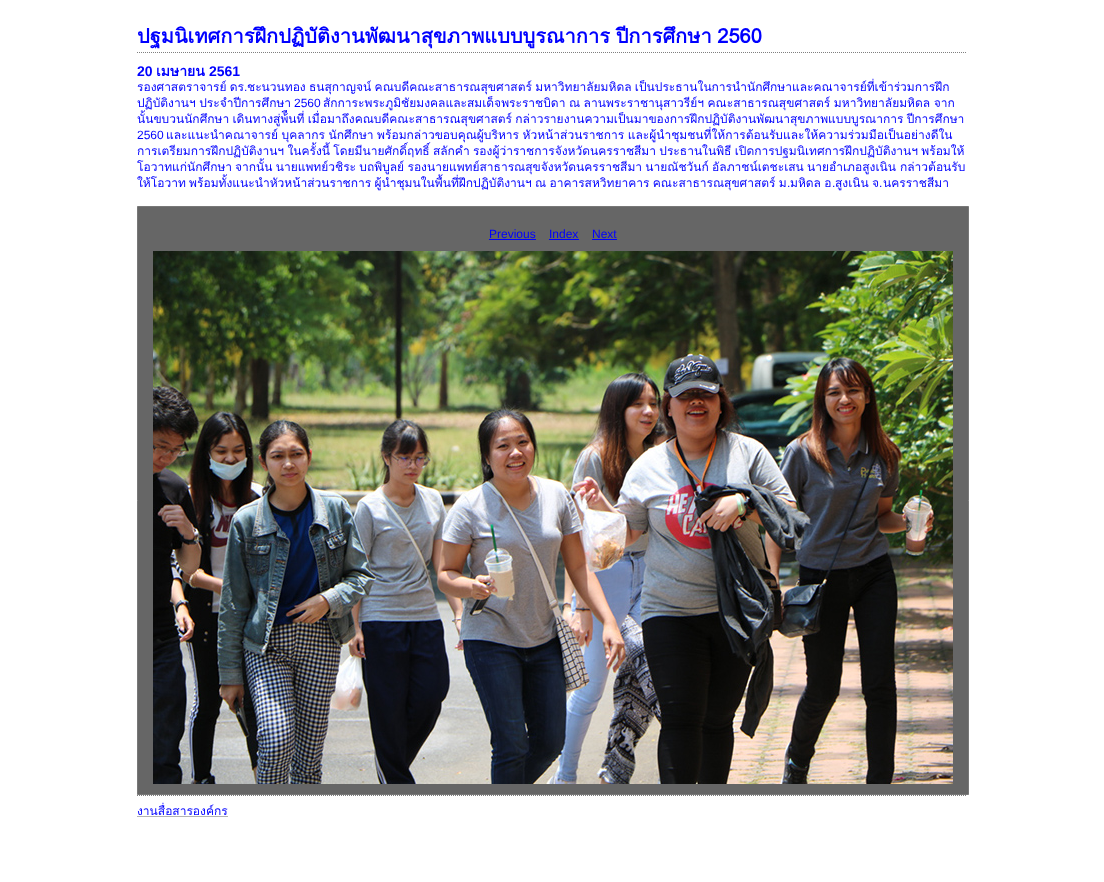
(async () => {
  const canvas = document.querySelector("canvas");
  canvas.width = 1104;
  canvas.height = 882;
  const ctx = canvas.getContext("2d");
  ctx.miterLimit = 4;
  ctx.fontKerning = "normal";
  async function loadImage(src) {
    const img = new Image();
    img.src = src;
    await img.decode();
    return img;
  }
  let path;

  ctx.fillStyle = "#ffffff";
  ctx.fillRect(0, 0, 1104, 882);
  path = new Path2D("M137 52.5H967");
  ctx.strokeStyle = "#7f7f7f";
  ctx.setLineDash([1, 1]);
  ctx.stroke(path);
  ctx.fillStyle = "#666666";
  ctx.beginPath();
  ctx.rect(137.5, 206.5, 831, 588);
  ctx.fill();
  ctx.strokeStyle = "#787878";
  ctx.setLineDash([]);
  ctx.stroke();
  for (const [x, y, w, h, color] of [
    [489, 239, 47, 1, "#0000ff"],
    [549, 239, 30, 1, "#0000ff"],
    [592, 239, 25, 1, "#0000ff"],
  ]) {
    ctx.fillStyle = color;
    ctx.fillRect(x, y, w, h);
  }
  ctx.drawImage(await loadImage("img/1.png"), 153, 251, 800, 533);
  path = new Path2D("M137 795.5H967");
  ctx.strokeStyle = "#7f7f7f";
  ctx.setLineDash([1, 1]);
  ctx.stroke(path);
  ctx.fillStyle = "#b3b3b3";
  ctx.fillRect(137, 816, 91, 1);
  ctx.wordSpacing = "-1px";
  ctx.font = "bold 20px Loma";
  ctx.fillStyle = "#0000ff";
  ctx.fillText("ปฐมนิเทศการฝึกปฏิบัติงานพัฒนาสุขภาพแบบบูรณาการ ปีการศึกษา 2560", 137, 43);
  ctx.wordSpacing = "0px";
  ctx.font = "bold 14px Liberation Sans";
  ctx.fillText("20", 137, 76);
  ctx.font = "bold 14px Loma";
  ctx.fillText("เมษายน", 156, 76);
  ctx.font = "bold 14px Liberation Sans";
  ctx.fillText("2561", 209, 76);
  ctx.wordSpacing = "-0.75px";
  ctx.font = "12px Loma";
  ctx.fillText("รองศาสตราจารย์ ดร", 137, 91);
  ctx.wordSpacing = "0px";
  ctx.font = "12px Liberation Sans";
  ctx.fillText(".", 244, 91);
  ctx.wordSpacing = "-0.75px";
  ctx.font = "12px Loma";
  ctx.fillText("ชะนวนทอง ธนสุกาญจน์ คณบดีคณะสาธารณสุขศาสตร์ มหาวิทยาลัยมหิดล เป็นประธานในการนำนักศึกษาและคณาจารย์ที่เข้าร่วมการฝึก", 247, 91);
  ctx.wordSpacing = "-0.5px";
  ctx.fillText("ปฏิบัติงานฯ ประจำปีการศึกษา", 137, 107);
  ctx.wordSpacing = "0px";
  ctx.font = "12px Liberation Sans";
  ctx.fillText("2560", 294, 107);
  ctx.wordSpacing = "-0.5px";
  ctx.font = "12px Loma";
  ctx.fillText("สักการะพระภูมิชัยมงคลและสมเด็จพระราชบิดา ณ ลานพระราชานุสาวรีย์ฯ คณะสาธารณสุขศาสตร์ มหาวิทยาลัยมหิดล จาก", 323, 107);
  ctx.wordSpacing = "-0.75px";
  ctx.fillText("นั้นขบวนนักศึกษา เดินทางสู่พ้ืนที่ เมื่อมาถึงคณบดีคณะสาธารณสุขศาสตร์ กล่าวรายงานความเป็นมาของการฝึกปฏิบัติงานพัฒนาสุขภาพแบบบูรณาการ ปีการศึกษา", 137, 123);
  ctx.wordSpacing = "0px";
  ctx.font = "12px Liberation Sans";
  ctx.fillText("2560", 137, 139);
  ctx.wordSpacing = "-0.5px";
  ctx.font = "12px Loma";
  ctx.fillText("และแนะนำคณาจารย์ บุคลากร นักศึกษา พร้อมกล่าวขอบคุณผู้บริหาร หัวหน้าส่วนราชการ และผู้นำชุมชนที่ให้การต้อนรับและให้ความร่วมมือเป็นอย่างดีใน", 166, 139);
  ctx.wordSpacing = "-0.75px";
  ctx.fillText("การเตรียมการฝึกปฏิบัติงานฯ ในครั้งนี้ โดยมีนายศักดิ์ฤทธิ์ สลักคำ รองผู้ว่าราชการจังหวัดนครราชสีมา ประธานในพิธี เปิดการปฐมนิเทศการฝึกปฏิบัติงานฯ พร้อมให้", 137, 155);
  ctx.wordSpacing = "0px";
  ctx.fillText("โอวาทแก่นักศึกษา", 137, 171);
  ctx.wordSpacing = "-0.75px";
  ctx.fillText("จากนั้น นายแพทย์วชิระ บถพิบูลย์ รองนายแพทย์สาธารณสุขจังหวัดนครราชสีมา นายณัชวันก์ อัลภาชน์เตชะเสน นายอำเภอสูงเนิน", 235, 171);
  ctx.wordSpacing = "0px";
  ctx.fillText("กล่าวต้อนรับ", 900, 171);
  ctx.wordSpacing = "-0.75px";
  ctx.fillText("ให้โอวาท พร้อมทั้งแนะนำหัวหน้าส่วนราชการ ผู้นำชุมนในพื้นที่ฝึกปฏิบัติงานฯ ณ อาคารสหวิทยาคาร คณะสาธารณสุขศาสตร์ ม", 137, 187);
  ctx.wordSpacing = "0px";
  ctx.font = "12px Liberation Sans";
  ctx.fillText(".", 787, 187);
  ctx.wordSpacing = "-0.75px";
  ctx.font = "12px Loma";
  ctx.fillText("มหิดล อ", 790, 187);
  ctx.wordSpacing = "0px";
  ctx.fillText("นครราชสีมา", 883, 187);
  ctx.font = "12px Liberation Sans";
  ctx.fillText(".", 832, 187);
  ctx.wordSpacing = "-0.75px";
  ctx.font = "12px Loma";
  ctx.fillText("สูงเนิน จ", 835, 187);
  ctx.wordSpacing = "0px";
  ctx.font = "12px Liberation Sans";
  for (const [text, x, y] of [
    [".", 879, 187],
    ["Previous", 489, 238],
    ["Index", 549, 238],
    ["Next", 592, 238],
  ]) {
    ctx.fillText(text, x, y);
  }
  ctx.font = "12px Loma";
  ctx.fillText("งานสื่อสารองค์กร", 137, 815);
})();
